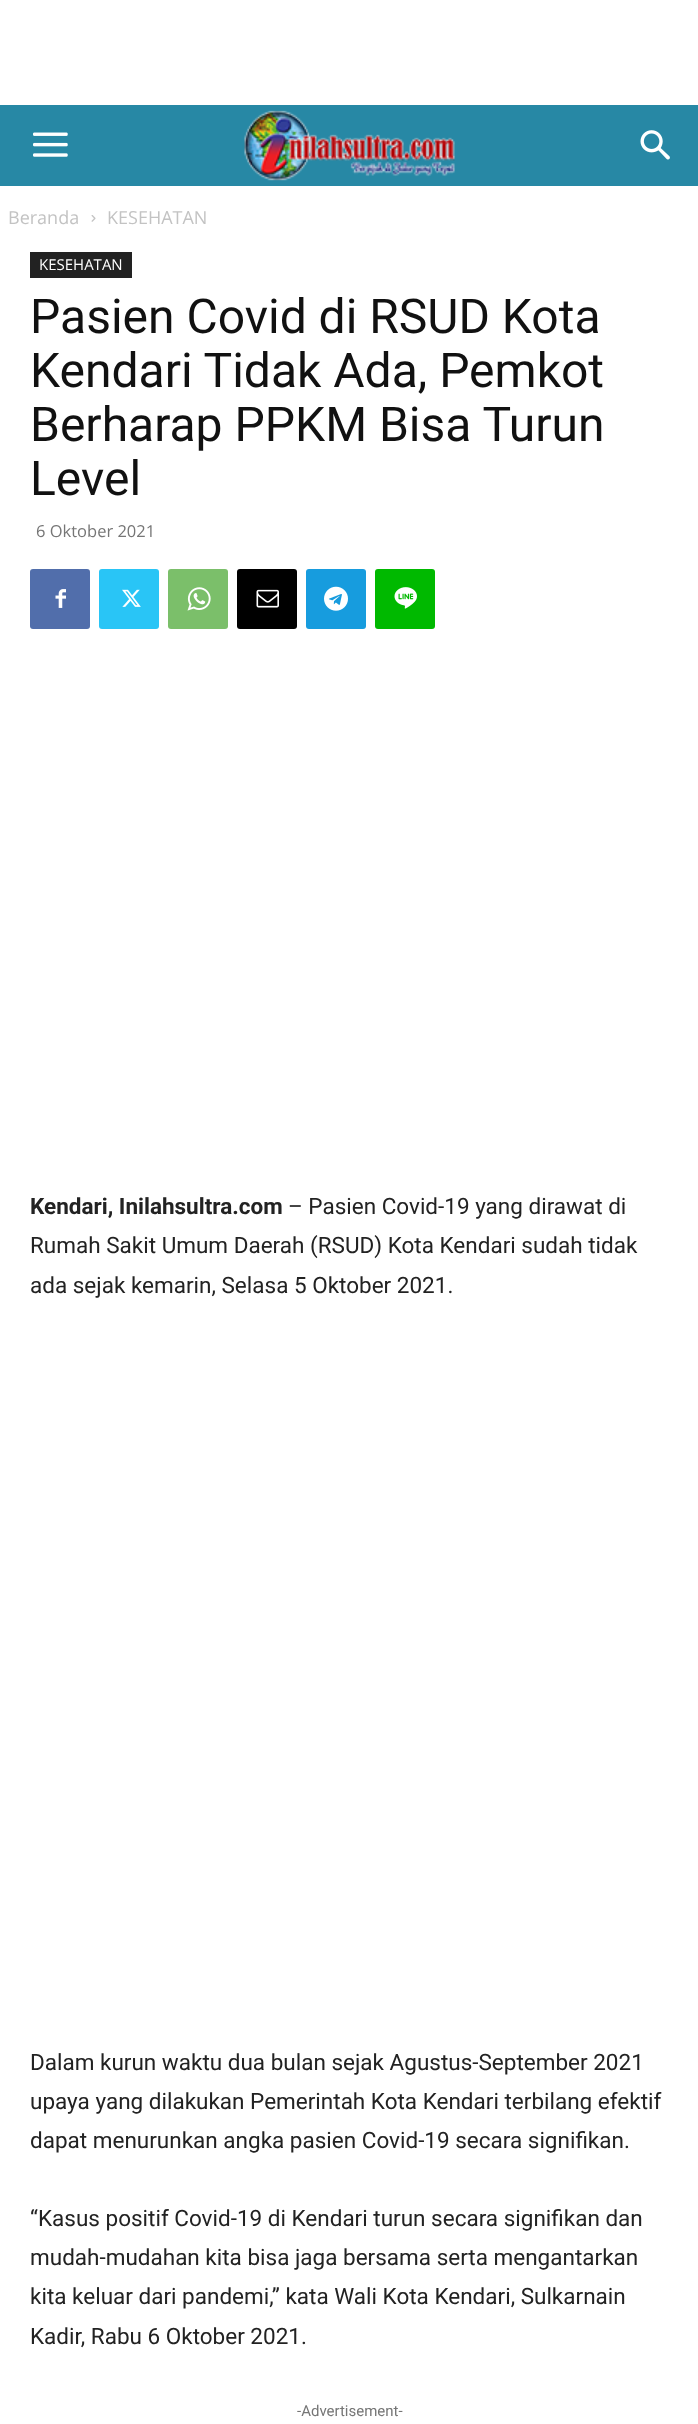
(async () => {
  const canvas = document.querySelector("canvas");
  canvas.width = 698;
  canvas.height = 2424;
  const ctx = canvas.getContext("2d");
  ctx.miterLimit = 4;
  ctx.fontKerning = "normal";
  async function loadImage(src) {
    const img = new Image();
    img.src = src;
    await img.decode();
    return img;
  }

  ctx.fillStyle = "#ffffff";
  ctx.fillRect(0, 0, 698, 2424);
  ctx.fillStyle = "#2788a5";
  ctx.fillRect(0, 105, 698, 81);
  ctx.drawImage(await loadImage("img/1.png"), 33, 132, 35, 25);
  ctx.drawImage(await loadImage("img/2.png"), 244, 110, 211, 71);
  ctx.drawImage(await loadImage("img/3.png"), 640, 130, 30, 30);
  ctx.drawImage(await loadImage("img/4.png"), 91, 215, 5, 7);
  ctx.fillStyle = "#222222";
  ctx.fillRect(30, 252, 102, 26);
  ctx.fillStyle = "#516eab";
  ctx.beginPath();
  ctx.roundRect(30, 569, 60, 60, 3);
  ctx.fill();
  ctx.drawImage(await loadImage("img/5.png"), 55, 589, 11, 19);
  ctx.fillStyle = "#29c5f6";
  ctx.beginPath();
  ctx.roundRect(99, 569, 60, 60, 3);
  ctx.fill();
  ctx.drawImage(await loadImage("img/6.png"), 122, 589, 19, 18);
  ctx.fillStyle = "#7bbf6a";
  ctx.beginPath();
  ctx.roundRect(168, 569, 60, 60, 3);
  ctx.fill();
  ctx.drawImage(await loadImage("img/7.png"), 187, 587, 24, 24);
  ctx.fillStyle = "#000000";
  ctx.beginPath();
  ctx.roundRect(237, 569, 60, 60, 3);
  ctx.fill();
  ctx.drawImage(await loadImage("img/8.png"), 256, 589, 23, 19);
  ctx.fillStyle = "#179cde";
  ctx.beginPath();
  ctx.roundRect(306, 569, 60, 60, 3);
  ctx.fill();
  ctx.drawImage(await loadImage("img/9.png"), 324, 586, 24, 25);
  ctx.fillStyle = "#00b900";
  ctx.beginPath();
  ctx.roundRect(375, 569, 60, 60, 3);
  ctx.fill();
  ctx.drawImage(await loadImage("img/10.png"), 394, 587, 23, 22);
  ctx.font = "18px Open Sans";
  ctx.fillStyle = "#c3c3c3";
  ctx.fillText("Beranda", 8, 224);
  ctx.fillText("KESEHATAN", 107, 224);
  ctx.font = "15px Open Sans";
  ctx.fillStyle = "#ffffff";
  ctx.fillText("KESEHATAN", 39, 270);
  ctx.font = "48px Roboto";
  ctx.fillStyle = "#111111";
  for (const [text, x, y] of [
    ["Pasien Covid di RSUD Kota", 30, 333],
    ["Kendari Tidak Ada, Pemkot", 30, 387],
    ["Berharap PPKM Bisa Turun", 30, 441],
    ["Level", 30, 495],
  ]) {
    ctx.fillText(text, x, y);
  }
  ctx.font = "16.5px Open Sans";
  ctx.fillStyle = "#767676";
  ctx.fillText("6 Oktober 2021", 36, 537);
  ctx.font = "bold 22.5px Roboto";
  ctx.fillStyle = "#222222";
  ctx.fillText("Kendari, Inilahsultra.com", 30, 1214);
  ctx.font = "22.5px Roboto";
  for (const [text, x, y] of [
    ["– Pasien Covid-19 yang dirawat di", 288, 1214],
    ["Rumah Sakit Umum Daerah (RSUD) Kota Kendari sudah tidak", 30, 1253],
    ["ada sejak kemarin, Selasa 5 Oktober 2021.", 30, 1293],
    ["Dalam kurun waktu dua bulan sejak Agustus-September 2021", 30, 2070],
    ["upaya yang dilakukan Pemerintah Kota Kendari terbilang efektif", 30, 2109],
    ["dapat menurunkan angka pasien Covid-19 secara signifikan.", 30, 2148],
    ["“Kasus positif Covid-19 di Kendari turun secara signifikan dan", 30, 2226],
    ["mudah-mudahan kita bisa jaga bersama serta mengantarkan", 30, 2265],
    ["kita keluar dari pandemi,” kata Wali Kota Kendari, Sulkarnain", 30, 2304],
    ["Kadir, Rabu 6 Oktober 2021.", 30, 2344],
  ]) {
    ctx.fillText(text, x, y);
  }
  ctx.font = "15px Roboto";
  ctx.fillStyle = "#767676";
  ctx.fillText("-Advertisement-", 297, 2416);
})();
